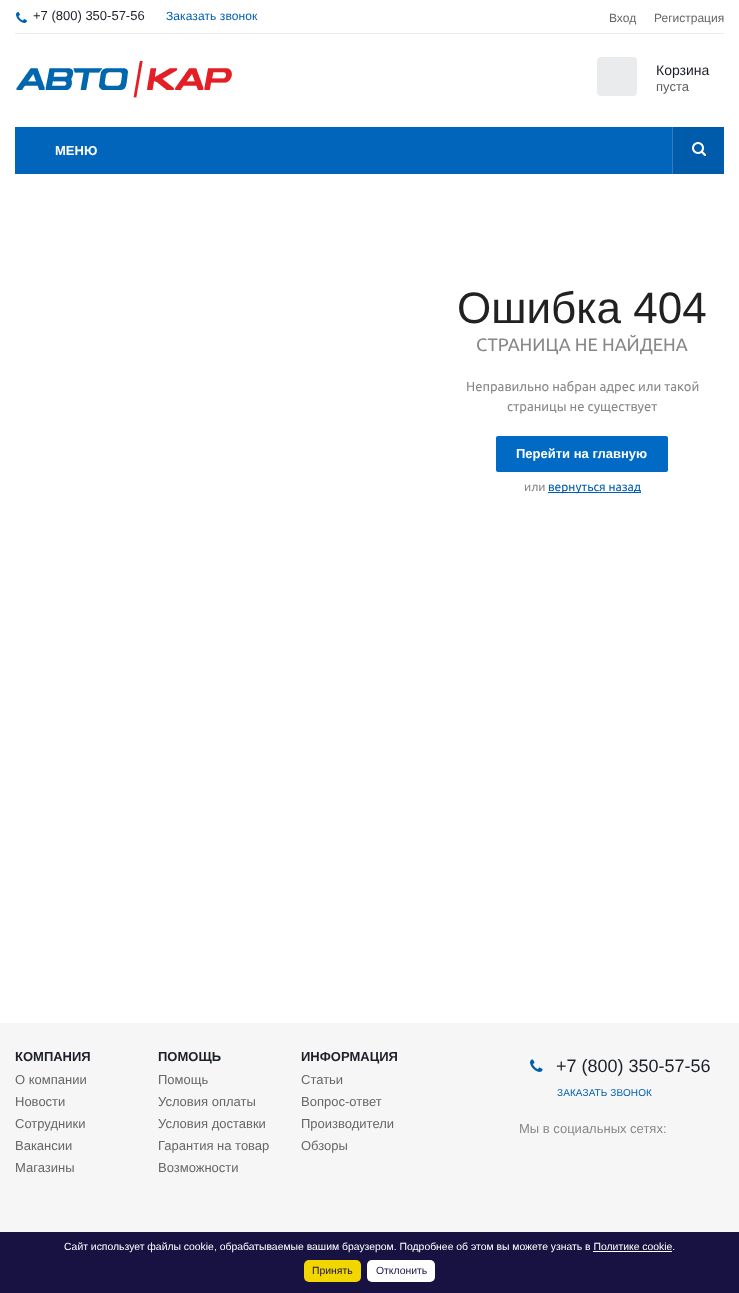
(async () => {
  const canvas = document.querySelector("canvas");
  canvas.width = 739;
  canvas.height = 1293;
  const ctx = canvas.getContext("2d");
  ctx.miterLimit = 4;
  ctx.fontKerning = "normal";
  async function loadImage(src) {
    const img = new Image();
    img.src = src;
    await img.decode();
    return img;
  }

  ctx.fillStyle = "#ffffff";
  ctx.fillRect(0, 0, 739, 1293);
  ctx.drawImage(await loadImage("img/1.png"), 16, 12, 11, 11);
  ctx.fillStyle = "#eaebec";
  ctx.fillRect(15, 33, 709, 1);
  ctx.drawImage(await loadImage("img/2.png"), 16, 61, 216, 37);
  ctx.beginPath();
  ctx.roundRect(597, 57, 40, 39, 4);
  ctx.fill();
  for (const [x, y, w, h, color] of [
    [15, 127, 657, 47, "#0065bb"],
    [673, 127, 51, 47, "#005cab"],
    [672, 127, 1, 47, "#337dbc"],
  ]) {
    ctx.fillStyle = color;
    ctx.fillRect(x, y, w, h);
  }
  ctx.drawImage(await loadImage("img/3.png"), 692, 142, 14, 14);
  ctx.fillStyle = "#006ac5";
  ctx.beginPath();
  ctx.roundRect(496, 436, 172, 36, 2);
  ctx.fill();
  ctx.fillStyle = "#005fb1";
  ctx.fillRect(548, 492, 93, 1);
  ctx.fillStyle = "#f6f6f7";
  ctx.fillRect(0, 1023, 739, 209);
  ctx.drawImage(await loadImage("img/4.png"), 530, 1059, 13, 13);
  ctx.fillStyle = "#171241";
  ctx.fillRect(0, 1232, 739, 61);
  ctx.fillStyle = "#ffffff";
  ctx.fillRect(593, 1251, 79, 1);
  ctx.fillStyle = "#f1d600";
  ctx.beginPath();
  ctx.roundRect(304, 1260, 57, 22, 5);
  ctx.fill();
  ctx.fillStyle = "#ffffff";
  ctx.beginPath();
  ctx.roundRect(367, 1260, 68, 22, 5);
  ctx.fill();
  ctx.font = "13px Liberation Sans";
  ctx.fillStyle = "#1d2029";
  ctx.fillText("+7 (800) 350-57-56", 33, 20);
  ctx.letterSpacing = "0.1px";
  ctx.font = "12px Liberation Sans";
  ctx.fillStyle = "#005fb1";
  ctx.fillText("Заказать звонок", 166, 20);
  ctx.letterSpacing = "0px";
  ctx.fillStyle = "#666666";
  ctx.fillText("Вход", 609, 22);
  ctx.fillText("Регистрация", 654, 22);
  ctx.font = "14px Liberation Sans";
  ctx.fillStyle = "#1d2029";
  ctx.fillText("Корзина", 656, 75);
  ctx.font = "13px Liberation Sans";
  ctx.fillStyle = "#5f5f5f";
  ctx.fillText("пуста", 656, 91);
  ctx.font = "bold 13px Liberation Sans";
  ctx.fillStyle = "#ffffff";
  ctx.fillText("МЕНЮ", 55, 155);
  ctx.font = "44px Liberation Sans";
  ctx.fillStyle = "#212121";
  ctx.fillText("Ошибка 404", 457, 323);
  ctx.font = "18px Ubuntu";
  ctx.fillStyle = "#888888";
  ctx.fillText("СТРАНИЦА НЕ НАЙДЕНА", 476, 351);
  ctx.font = "13px Ubuntu";
  ctx.fillText("Неправильно набран адрес или такой", 466, 391);
  ctx.fillText("страницы не существует", 507, 411);
  ctx.font = "bold 13px Liberation Sans";
  ctx.fillStyle = "#ffffff";
  ctx.fillText("Перейти на главную", 516, 458);
  ctx.font = "12px Ubuntu";
  ctx.fillStyle = "#888888";
  ctx.fillText("или", 524, 491);
  ctx.fillStyle = "#005fb1";
  ctx.fillText("вернуться назад", 548, 491);
  ctx.font = "bold 13px Liberation Sans";
  ctx.fillStyle = "#1d2029";
  for (const [text, x, y] of [
    ["КОМПАНИЯ", 15, 1061],
    ["ПОМОЩЬ", 158, 1061],
    ["ИНФОРМАЦИЯ", 301, 1061],
  ]) {
    ctx.fillText(text, x, y);
  }
  ctx.font = "13px Liberation Sans";
  ctx.fillStyle = "#666666";
  for (const [text, x, y] of [
    ["О компании", 15, 1084],
    ["Новости", 15, 1106],
    ["Сотрудники", 15, 1128],
    ["Вакансии", 15, 1150],
    ["Магазины", 15, 1172],
    ["Помощь", 158, 1084],
    ["Условия оплаты", 158, 1106],
    ["Условия доставки", 158, 1128],
    ["Гарантия на товар", 158, 1150],
    ["Возможности", 158, 1172],
    ["Статьи", 301, 1084],
    ["Вопрос-ответ", 301, 1106],
    ["Производители", 301, 1128],
    ["Обзоры", 301, 1150],
  ]) {
    ctx.fillText(text, x, y);
  }
  ctx.font = "18px Liberation Sans";
  ctx.fillStyle = "#1d2029";
  ctx.fillText("+7 (800) 350-57-56", 556, 1072);
  ctx.letterSpacing = "0.1px";
  ctx.font = "10px Liberation Sans";
  ctx.fillStyle = "#005fb1";
  ctx.fillText("ЗАКАЗАТЬ ЗВОНОК", 557, 1096);
  ctx.letterSpacing = "0px";
  ctx.font = "13px Liberation Sans";
  ctx.fillStyle = "#888888";
  ctx.fillText("Мы в социальных сетях:", 519, 1133);
  ctx.font = "10.4px Liberation Sans";
  ctx.fillStyle = "#ffffff";
  ctx.fillText("Сайт использует файлы cookie, обрабатываемые вашим браузером. Подробнее об этом вы можете узнать в Политике cookie.", 64, 1250);
  ctx.fillStyle = "#171241";
  ctx.fillText("Принять", 312, 1274);
  ctx.fillText("Отклонить", 376, 1274);
})();
